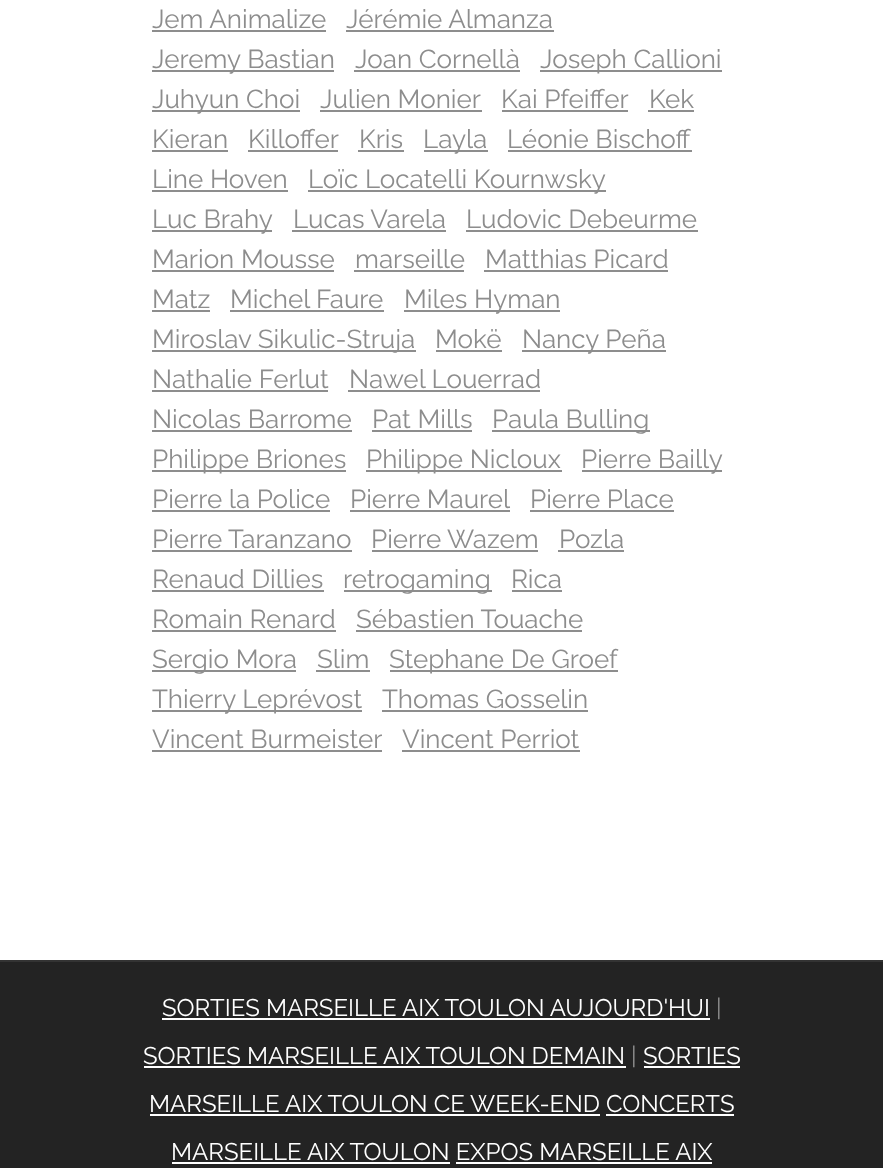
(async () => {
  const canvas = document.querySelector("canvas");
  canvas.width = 883;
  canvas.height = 1168;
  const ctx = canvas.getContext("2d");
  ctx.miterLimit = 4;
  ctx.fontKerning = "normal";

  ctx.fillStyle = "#ffffff";
  ctx.fillRect(0, 0, 883, 1168);
  for (const [x, y, w, h, color] of [
    [152, 30, 174, 2, "#8d8d8d"],
    [346, 30, 208, 2, "#8d8d8d"],
    [152, 70, 182, 2, "#8d8d8d"],
    [354, 70, 166, 2, "#8d8d8d"],
    [540, 70, 182, 2, "#8d8d8d"],
    [152, 110, 148, 2, "#8d8d8d"],
    [320, 110, 162, 2, "#8d8d8d"],
    [502, 110, 126, 2, "#8d8d8d"],
    [648, 110, 46, 2, "#8d8d8d"],
    [152, 150, 76, 2, "#8d8d8d"],
    [248, 150, 90, 2, "#8d8d8d"],
    [358, 150, 46, 2, "#8d8d8d"],
    [424, 150, 64, 2, "#8d8d8d"],
    [508, 150, 184, 2, "#8d8d8d"],
    [152, 190, 136, 2, "#8d8d8d"],
    [308, 190, 298, 2, "#8d8d8d"],
    [152, 230, 120, 2, "#8d8d8d"],
    [292, 230, 154, 2, "#8d8d8d"],
    [466, 230, 232, 2, "#8d8d8d"],
    [152, 270, 182, 2, "#8d8d8d"],
    [354, 270, 110, 2, "#8d8d8d"],
    [484, 270, 184, 2, "#8d8d8d"],
    [152, 310, 58, 2, "#8d8d8d"],
    [230, 310, 154, 2, "#8d8d8d"],
    [404, 310, 156, 2, "#8d8d8d"],
    [152, 350, 264, 2, "#8d8d8d"],
    [436, 350, 66, 2, "#8d8d8d"],
    [522, 350, 144, 2, "#8d8d8d"],
    [152, 390, 176, 2, "#8d8d8d"],
    [348, 390, 192, 2, "#8d8d8d"],
    [152, 430, 200, 2, "#8d8d8d"],
    [372, 430, 100, 2, "#8d8d8d"],
    [492, 430, 158, 2, "#8d8d8d"],
    [152, 470, 194, 2, "#8d8d8d"],
    [366, 470, 196, 2, "#8d8d8d"],
    [582, 470, 140, 2, "#8d8d8d"],
    [152, 510, 178, 2, "#8d8d8d"],
    [350, 510, 160, 2, "#8d8d8d"],
    [530, 510, 144, 2, "#8d8d8d"],
    [152, 550, 200, 2, "#8d8d8d"],
    [372, 550, 166, 2, "#8d8d8d"],
    [558, 550, 66, 2, "#8d8d8d"],
    [152, 590, 172, 2, "#8d8d8d"],
    [344, 590, 148, 2, "#8d8d8d"],
    [512, 590, 50, 2, "#8d8d8d"],
    [152, 630, 184, 2, "#8d8d8d"],
    [356, 630, 226, 2, "#8d8d8d"],
    [152, 670, 144, 2, "#8d8d8d"],
    [316, 670, 54, 2, "#8d8d8d"],
    [390, 670, 228, 2, "#8d8d8d"],
    [152, 710, 210, 2, "#8d8d8d"],
    [382, 710, 206, 2, "#8d8d8d"],
    [152, 750, 230, 2, "#8d8d8d"],
    [402, 750, 178, 2, "#8d8d8d"],
    [0, 962, 883, 206, "#232323"],
    [0, 960, 883, 2, "#333333"],
    [162, 1018, 548, 2, "#ffffff"],
    [144, 1066, 482, 2, "#ffffff"],
    [644, 1066, 96, 2, "#ffffff"],
    [150, 1114, 450, 2, "#ffffff"],
    [606, 1114, 128, 2, "#ffffff"],
    [172, 1162, 278, 2, "#ffffff"],
    [456, 1162, 256, 2, "#ffffff"],
  ]) {
    ctx.fillStyle = color;
    ctx.fillRect(x, y, w, h);
  }
  ctx.font = "26px Raleway";
  ctx.fillStyle = "#8d8d8d";
  for (const [text, x, y] of [
    ["Jem Animalize", 152, 28],
    ["Jérémie Almanza", 346, 28],
    ["Jeremy Bastian", 152, 68],
    ["Joan Cornellà", 355, 68],
    ["Joseph Callioni", 540, 68],
    ["Juhyun Choi", 152, 108],
    ["Julien Monier", 320, 108],
    ["Kai Pfeiffer", 501, 108],
    ["Kek", 649, 108],
    ["Kieran", 152, 148],
    ["Killoffer", 248, 148],
    ["Kris", 359, 148],
    ["Layla", 423, 148],
    ["Léonie Bischoff", 507, 148],
    ["Line Hoven", 152, 188],
    ["Loïc Locatelli Kournwsky", 308, 188],
    ["Luc Brahy", 152, 228],
    ["Lucas Varela", 293, 228],
    ["Ludovic Debeurme", 466, 228],
    ["Marion Mousse", 152, 268],
    ["marseille", 355, 268],
    ["Matthias Picard", 485, 268],
    ["Matz", 152, 308],
    ["Michel Faure", 230, 308],
    ["Miles Hyman", 404, 308],
    ["Miroslav Sikulic-Struja", 152, 348],
    ["Mokë", 435, 348],
    ["Nancy Peña", 522, 348],
    ["Nathalie Ferlut", 152, 388],
    ["Nawel Louerrad", 349, 388],
    ["Nicolas Barrome", 152, 428],
    ["Pat Mills", 372, 428],
    ["Paula Bulling", 492, 428],
    ["Philippe Briones", 152, 468],
    ["Philippe Nicloux", 366, 468],
    ["Pierre Bailly", 581, 468],
    ["Pierre la Police", 152, 508],
    ["Pierre Maurel", 350, 508],
    ["Pierre Place", 530, 508],
    ["Pierre Taranzano", 152, 548],
    ["Pierre Wazem", 371, 548],
    ["Pozla", 559, 548],
    ["Renaud Dillies", 152, 588],
    ["retrogaming", 343, 588],
    ["Rica", 511, 588],
    ["Romain Renard", 152, 628],
    ["Sébastien Touache", 356, 628],
    ["Sergio Mora", 152, 668],
    ["Slim", 317, 668],
    ["Stephane De Groef", 389, 668],
    ["Thierry Leprévost", 152, 708],
    ["Thomas Gosselin", 382, 708],
    ["Vincent Burmeister", 152, 748],
    ["Vincent Perriot", 402, 748],
  ]) {
    ctx.fillText(text, x, y);
  }
  ctx.font = "24px Raleway";
  ctx.fillStyle = "#ffffff";
  ctx.fillText("SORTIES MARSEILLE AIX TOULON AUJOURD'HUI", 162, 1016);
  ctx.fillStyle = "#8d8d8d";
  ctx.fillText("|", 716, 1016);
  ctx.fillStyle = "#ffffff";
  ctx.fillText("SORTIES MARSEILLE AIX TOULON DEMAIN", 143, 1064);
  ctx.fillStyle = "#8d8d8d";
  ctx.fillText("|", 631, 1064);
  ctx.fillStyle = "#ffffff";
  for (const [text, x, y] of [
    ["SORTIES", 643, 1064],
    ["MARSEILLE AIX TOULON CE WEEK-END CONCERTS", 149, 1112],
    ["MARSEILLE AIX TOULON EXPOS MARSEILLE AIX", 171, 1160],
  ]) {
    ctx.fillText(text, x, y);
  }
})();
